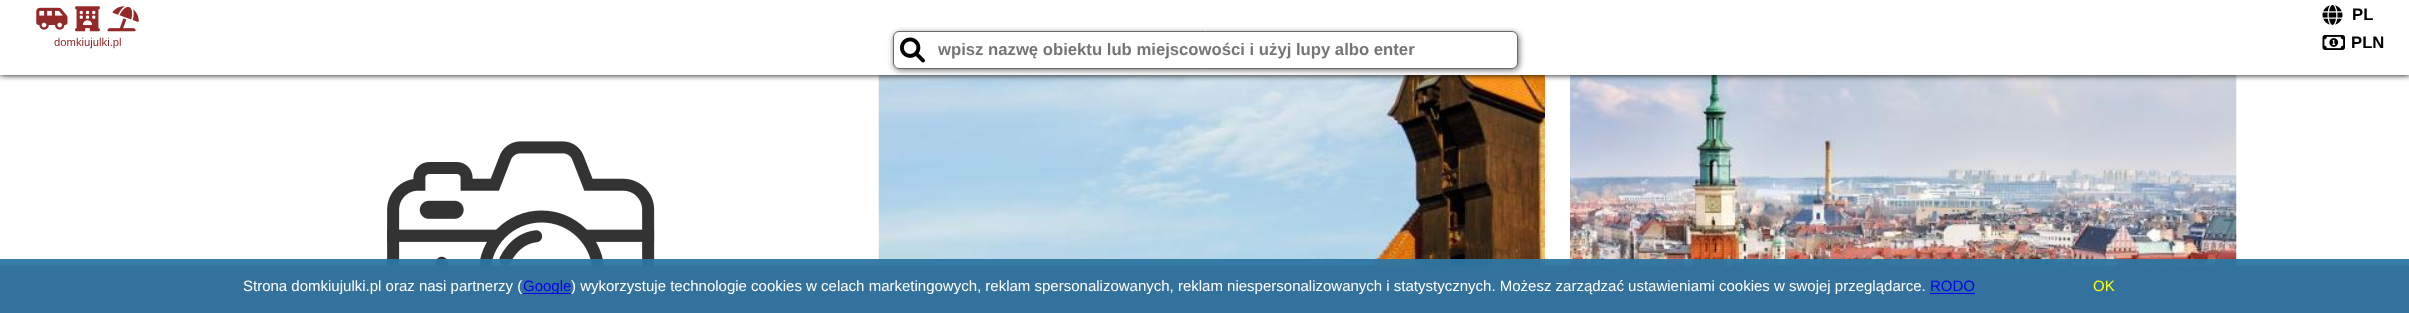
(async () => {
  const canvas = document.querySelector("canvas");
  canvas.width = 2409;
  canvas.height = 313;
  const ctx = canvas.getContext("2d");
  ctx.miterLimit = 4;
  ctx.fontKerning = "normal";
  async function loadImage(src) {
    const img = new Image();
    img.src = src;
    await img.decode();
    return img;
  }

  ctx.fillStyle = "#ffffff";
  ctx.fillRect(0, 0, 2409, 313);
  ctx.drawImage(await loadImage("img/8.png"), 878, 75, 667, 191);
  ctx.drawImage(await loadImage("img/9.png"), 1570, 75, 667, 191);
  ctx.fillStyle = "#000000";
  ctx.filter = "blur(3px)";
  ctx.beginPath();
  ctx.rect(0, 0, 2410, 75);
  ctx.fill();
  ctx.filter = "none";
  ctx.fillStyle = "#ffffff";
  ctx.fillRect(0, 0, 2409, 75);
  ctx.drawImage(await loadImage("img/1.png"), 2322, 5, 21, 20);
  ctx.drawImage(await loadImage("img/2.png"), 36, 7, 32, 23);
  ctx.drawImage(await loadImage("img/3.png"), 75, 6, 25, 26);
  ctx.drawImage(await loadImage("img/4.png"), 107, 6, 32, 26);
  ctx.fillStyle = "#676868";
  ctx.filter = "blur(3px)";
  ctx.beginPath();
  ctx.roundRect(894, 33, 625, 37, 6);
  ctx.fill();
  ctx.filter = "none";
  ctx.fillStyle = "#ffffff";
  ctx.beginPath();
  ctx.roundRect(893.5, 31.5, 624, 37, 5.5);
  ctx.fill();
  ctx.strokeStyle = "#676868";
  ctx.stroke();
  ctx.drawImage(await loadImage("img/5.png"), 900, 37, 25, 26);
  ctx.drawImage(await loadImage("img/6.png"), 2322, 35, 23, 15);
  ctx.drawImage(await loadImage("img/7.png"), 387, 141, 268, 125);
  ctx.fillStyle = "#942929";
  ctx.filter = "blur(1px)";
  ctx.beginPath();
  ctx.rect(0, 266, 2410, 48);
  ctx.fill();
  ctx.filter = "none";
  for (const [x, y, w, h, color] of [
    [0, 266, 2409, 47, "#942929"],
    [0, 259, 2409, 54, "rgba(45, 118, 162, 0.95)"],
    [523, 293, 48, 1, "#0000ee"],
    [1930, 293, 45, 1, "#0000ee"],
  ]) {
    ctx.fillStyle = color;
    ctx.fillRect(x, y, w, h);
  }
  ctx.font = "bold 16.7px Liberation Sans";
  ctx.fillStyle = "#000000";
  ctx.fillText("PL", 2352, 20);
  ctx.font = "11.25px Liberation Sans";
  ctx.fillStyle = "#942929";
  ctx.fillText("domkiujulki.pl", 54, 46);
  ctx.font = "bold 16.7px Liberation Sans";
  ctx.fillStyle = "#757575";
  ctx.fillText("wpisz nazwę obiektu lub miejscowości i użyj lupy albo enter", 938, 55);
  ctx.fillStyle = "#000000";
  ctx.fillText("PLN", 2351, 48);
  ctx.font = "15px Liberation Sans";
  ctx.fillStyle = "#ffffff";
  ctx.fillText("Strona domkiujulki.pl oraz nasi partnerzy (", 243, 291);
  ctx.fillStyle = "#0000ee";
  ctx.fillText("Google", 523, 291);
  ctx.fillStyle = "#ffffff";
  ctx.fillText(") wykorzystuje technologie cookies w celach marketingowych, reklam spersonalizowanych, reklam niespersonalizowanych i statystycznych. Możesz zarządzać ustawieniami cookies w swojej przeglądarce.", 571, 291);
  ctx.fillStyle = "#0000ee";
  ctx.fillText("RODO", 1930, 291);
  ctx.fillStyle = "#ffff00";
  ctx.fillText("OK", 2093, 291);
})();
